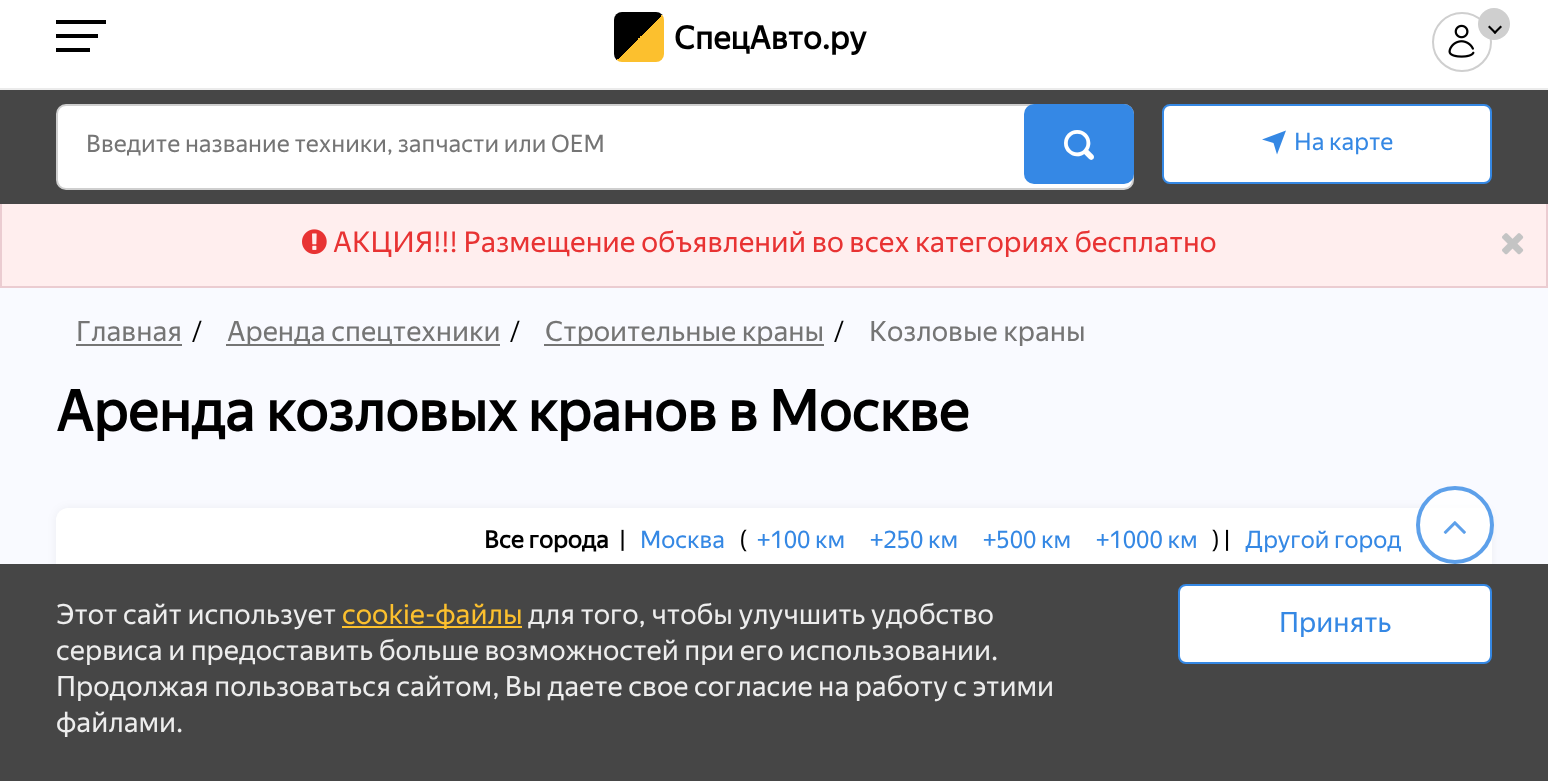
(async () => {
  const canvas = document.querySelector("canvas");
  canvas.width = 1548;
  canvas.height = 781;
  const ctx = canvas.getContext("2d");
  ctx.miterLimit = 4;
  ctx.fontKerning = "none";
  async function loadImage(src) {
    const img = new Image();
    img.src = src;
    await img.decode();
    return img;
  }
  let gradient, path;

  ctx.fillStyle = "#f9faff";
  ctx.fillRect(0, 0, 1548, 781);
  for (const [x, y, w, h, color] of [
    [0, 0, 1548, 88, "#ffffff"],
    [0, 88, 1548, 2, "#ebebeb"],
    [56, 20, 50, 4, "#000000"],
    [56, 34, 42, 4, "#000000"],
    [56, 48, 34, 4, "#000000"],
  ]) {
    ctx.fillStyle = color;
    ctx.fillRect(x, y, w, h);
  }
  gradient = ctx.createLinearGradient(614, 12, 664, 62);
  gradient.addColorStop(0, "#000000");
  gradient.addColorStop(0.51, "#000000");
  gradient.addColorStop(0.51, "#fcc02e");
  gradient.addColorStop(1, "#fcc02e");
  ctx.fillStyle = gradient;
  ctx.beginPath();
  ctx.roundRect(614, 12, 50, 50, 8);
  ctx.fill();
  ctx.beginPath();
  ctx.arc(1462, 42, 29, 0, Math.PI * 2);
  ctx.strokeStyle = "#cfcfcf";
  ctx.lineWidth = 2;
  ctx.stroke();
  ctx.drawImage(await loadImage("img/1.png"), 1448, 24, 27, 34);
  ctx.fillStyle = "#cfcfcf";
  ctx.beginPath();
  ctx.arc(1494, 24, 16, 0, Math.PI * 2);
  ctx.fill();
  ctx.fillStyle = "#000000";
  path = new Path2D("M1500.5 25.5L1502 27L1495 34L1493.5 32.5Z");
  ctx.fill(path);
  path = new Path2D("M1489.5 25.5L1496.5 32.5L1495 34L1488 27Z");
  ctx.fill(path);
  ctx.fillStyle = "#ffeeee";
  ctx.fillRect(2, 204, 1544, 82);
  ctx.strokeStyle = "#ebccd1";
  ctx.strokeRect(1, 201, 1546, 86);
  ctx.fillStyle = "#464646";
  ctx.fillRect(0, 90, 1548, 114);
  ctx.fillStyle = "#ffffff";
  ctx.beginPath();
  ctx.roundRect(57, 105, 1076, 84, 9);
  ctx.fill();
  ctx.strokeStyle = "#cfcfcf";
  ctx.stroke();
  ctx.fillStyle = "#3588e5";
  ctx.beginPath();
  ctx.roundRect(1024, 104, 110, 80, 10);
  ctx.fill();
  ctx.fillStyle = "#ffffff";
  ctx.beginPath();
  ctx.roundRect(1163, 105, 328, 78, 7);
  ctx.fill();
  ctx.strokeStyle = "#3588e4";
  ctx.stroke();
  ctx.fillStyle = "#3588e4";
  path = new Path2D("M1286 130.5L1262 139.5L1273.5 143L1277 154.5Z");
  ctx.fill(path);
  ctx.drawImage(await loadImage("img/2.png"), 302, 229, 25, 26);
  ctx.drawImage(await loadImage("img/3.png"), 1502, 233, 22, 22);
  for (const [x, y, w, h, color] of [
    [76, 344, 106, 2, "#757575"],
    [226, 344, 274, 2, "#757575"],
    [544, 344, 280, 2, "#757575"],
  ]) {
    ctx.fillStyle = color;
    ctx.fillRect(x, y, w, h);
  }
  ctx.fillStyle = "rgba(0, 0, 0, 0.05)";
  ctx.filter = "blur(5px)";
  ctx.beginPath();
  ctx.roundRect(56, 508, 1436, 154, 12);
  ctx.fill();
  ctx.filter = "none";
  ctx.fillStyle = "#ffffff";
  ctx.beginPath();
  ctx.roundRect(56, 508, 1436, 154, 12);
  ctx.fill();
  ctx.fillStyle = "rgba(255, 255, 255, 0.8)";
  ctx.beginPath();
  ctx.arc(1455, 525, 39, 0, Math.PI * 2);
  ctx.fill();
  ctx.beginPath();
  ctx.arc(1455, 525, 37, 0, Math.PI * 2);
  ctx.strokeStyle = "rgba(53, 136, 229, 0.8)";
  ctx.lineWidth = 4;
  ctx.stroke();
  ctx.drawImage(await loadImage("img/4.png"), 1443, 521, 23, 13);
  ctx.fillStyle = "#464646";
  ctx.fillRect(0, 564, 1548, 217);
  ctx.fillStyle = "#fcc02e";
  ctx.fillRect(342, 626, 180, 2);
  ctx.fillStyle = "#ffffff";
  ctx.beginPath();
  ctx.roundRect(1179, 585, 312, 78, 7);
  ctx.fill();
  ctx.strokeStyle = "#3588e4";
  ctx.lineWidth = 2;
  ctx.stroke();
  ctx.font = "bold 32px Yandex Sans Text";
  ctx.fillStyle = "#000000";
  ctx.fillText("СпецАвто.ру", 674, 49);
  ctx.font = "24px Yandex Sans Text";
  ctx.fillStyle = "#757575";
  ctx.fillText("Введите название техники, запчасти или OEM", 86, 152);
  ctx.font = "30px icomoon";
  ctx.fillStyle = "#ffffff";
  ctx.fillText("🔍", 1064, 158);
  ctx.font = "24px Yandex Sans Text";
  ctx.fillStyle = "#3588e4";
  ctx.fillText("На карте", 1294, 150);
  ctx.font = "28.8px Yandex Sans Text";
  ctx.fillStyle = "#e83333";
  ctx.fillText("АКЦИЯ!!! Размещение объявлений во всех категориях бесплатно", 333, 252);
  ctx.font = "28px Yandex Sans Text";
  ctx.fillStyle = "#757575";
  ctx.fillText("Главная", 76, 341);
  ctx.font = "24px Yandex Sans Text";
  ctx.fillStyle = "#000000";
  ctx.fillText("/", 192, 339);
  ctx.font = "28px Yandex Sans Text";
  ctx.fillStyle = "#757575";
  ctx.fillText("Аренда спецтехники", 227, 341);
  ctx.font = "24px Yandex Sans Text";
  ctx.fillStyle = "#000000";
  ctx.fillText("/", 510, 339);
  ctx.font = "28px Yandex Sans Text";
  ctx.fillStyle = "#757575";
  ctx.fillText("Строительные краны", 545, 341);
  ctx.font = "24px Yandex Sans Text";
  ctx.fillStyle = "#000000";
  ctx.fillText("/", 834, 339);
  ctx.font = "28px Yandex Sans Text";
  ctx.fillStyle = "#757575";
  ctx.fillText("Козловые краны", 869, 341);
  ctx.font = "bold 56.4px Yandex Sans Text";
  ctx.fillStyle = "#000000";
  ctx.fillText("Аренда козловых кранов в Москве", 56, 431);
  ctx.font = "bold 24px Yandex Sans Text";
  ctx.fillText("Все города", 484, 548);
  ctx.font = "24px Yandex Sans Text";
  ctx.fillText("|", 619, 548);
  ctx.fillStyle = "#3588e4";
  ctx.fillText("Москва", 640, 548);
  ctx.fillStyle = "#000000";
  ctx.fillText("(", 740, 548);
  ctx.fillStyle = "#3588e4";
  for (const [text, x, y] of [
    ["+100 км", 757, 548],
    ["+250 км", 870, 548],
    ["+500 км", 983, 548],
    ["+1000 км", 1096, 548],
  ]) {
    ctx.fillText(text, x, y);
  }
  ctx.fillStyle = "#000000";
  ctx.fillText(") |", 1212, 548);
  ctx.fillStyle = "#3588e4";
  ctx.fillText("Другой город", 1245, 548);
  ctx.font = "28px Yandex Sans Text";
  ctx.fillStyle = "#ededed";
  ctx.fillText("Этот сайт использует", 56, 624);
  ctx.fillStyle = "#fcc02e";
  ctx.fillText("cookie-файлы", 342, 624);
  ctx.fillStyle = "#ededed";
  for (const [text, x, y] of [
    ["для того, чтобы улучшить удобство", 528, 624],
    ["сервиса и предоставить больше возможностей при его использовании.", 56, 660],
    ["Продолжая пользоваться сайтом, Вы даете свое согласие на работу с этими", 56, 696],
    ["файлами.", 56, 732],
  ]) {
    ctx.fillText(text, x, y);
  }
  ctx.fillStyle = "#3588e4";
  ctx.fillText("Принять", 1279, 632);
})();
